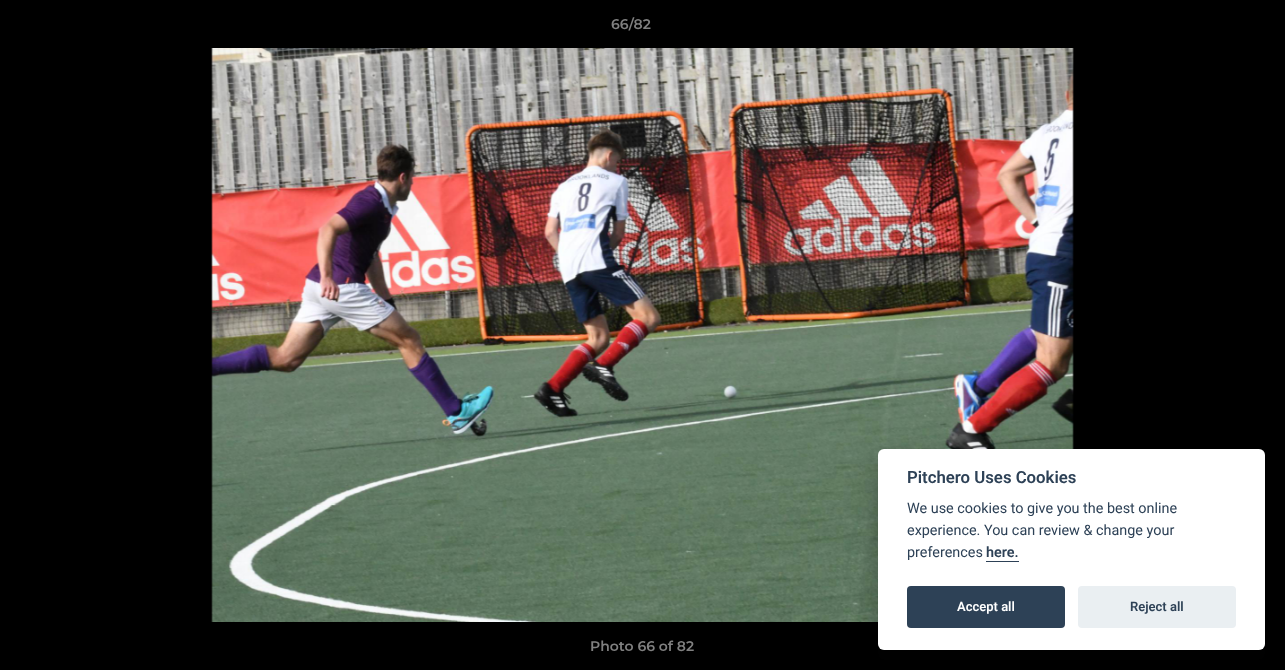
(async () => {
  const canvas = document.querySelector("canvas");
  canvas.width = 1285;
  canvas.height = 670;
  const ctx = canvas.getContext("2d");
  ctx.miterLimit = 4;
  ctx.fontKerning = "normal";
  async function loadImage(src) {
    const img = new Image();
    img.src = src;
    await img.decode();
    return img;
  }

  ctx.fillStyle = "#000000";
  ctx.fillRect(0, 0, 1285, 670);
  ctx.drawImage(await loadImage("img/1.png"), 211, 48, 863, 574);
  ctx.fillStyle = "rgba(2, 2, 3, 0.28)";
  ctx.filter = "blur(15px)";
  ctx.beginPath();
  ctx.roundRect(878, 459, 387, 201, 6);
  ctx.fill();
  ctx.filter = "none";
  ctx.fillStyle = "#ffffff";
  ctx.beginPath();
  ctx.roundRect(878, 449, 387, 201, 6);
  ctx.fill();
  ctx.fillStyle = "#2d4156";
  ctx.fillRect(986, 561, 33, 1);
  ctx.beginPath();
  ctx.roundRect(907, 586, 158, 42, 4);
  ctx.fill();
  ctx.fillStyle = "#eaeff2";
  ctx.beginPath();
  ctx.roundRect(1078, 586, 158, 42, 4);
  ctx.fill();
  ctx.font = "600 14px Montserrat";
  ctx.fillStyle = "#808080";
  ctx.fillText("66/82", 611, 29);
  ctx.fillText("Photo 66 of 82", 590, 651);
  ctx.font = "600 16.75px Roboto";
  ctx.fillStyle = "#2d4156";
  ctx.fillText("Pitchero Uses Cookies", 907, 483);
  ctx.font = "14.4px Roboto";
  for (const [text, x, y] of [
    ["We use cookies to give you the best online", 907, 513],
    ["experience. You can review & change your", 907, 535],
    ["preferences", 907, 557],
  ]) {
    ctx.fillText(text, x, y);
  }
  ctx.font = "600 14.4px Roboto";
  ctx.fillText("here.", 986, 557);
  ctx.font = "600 13px Roboto";
  ctx.fillStyle = "#ffffff";
  ctx.fillText("Accept all", 957, 611);
  ctx.fillStyle = "#2d4156";
  ctx.fillText("Reject all", 1130, 611);
})();
